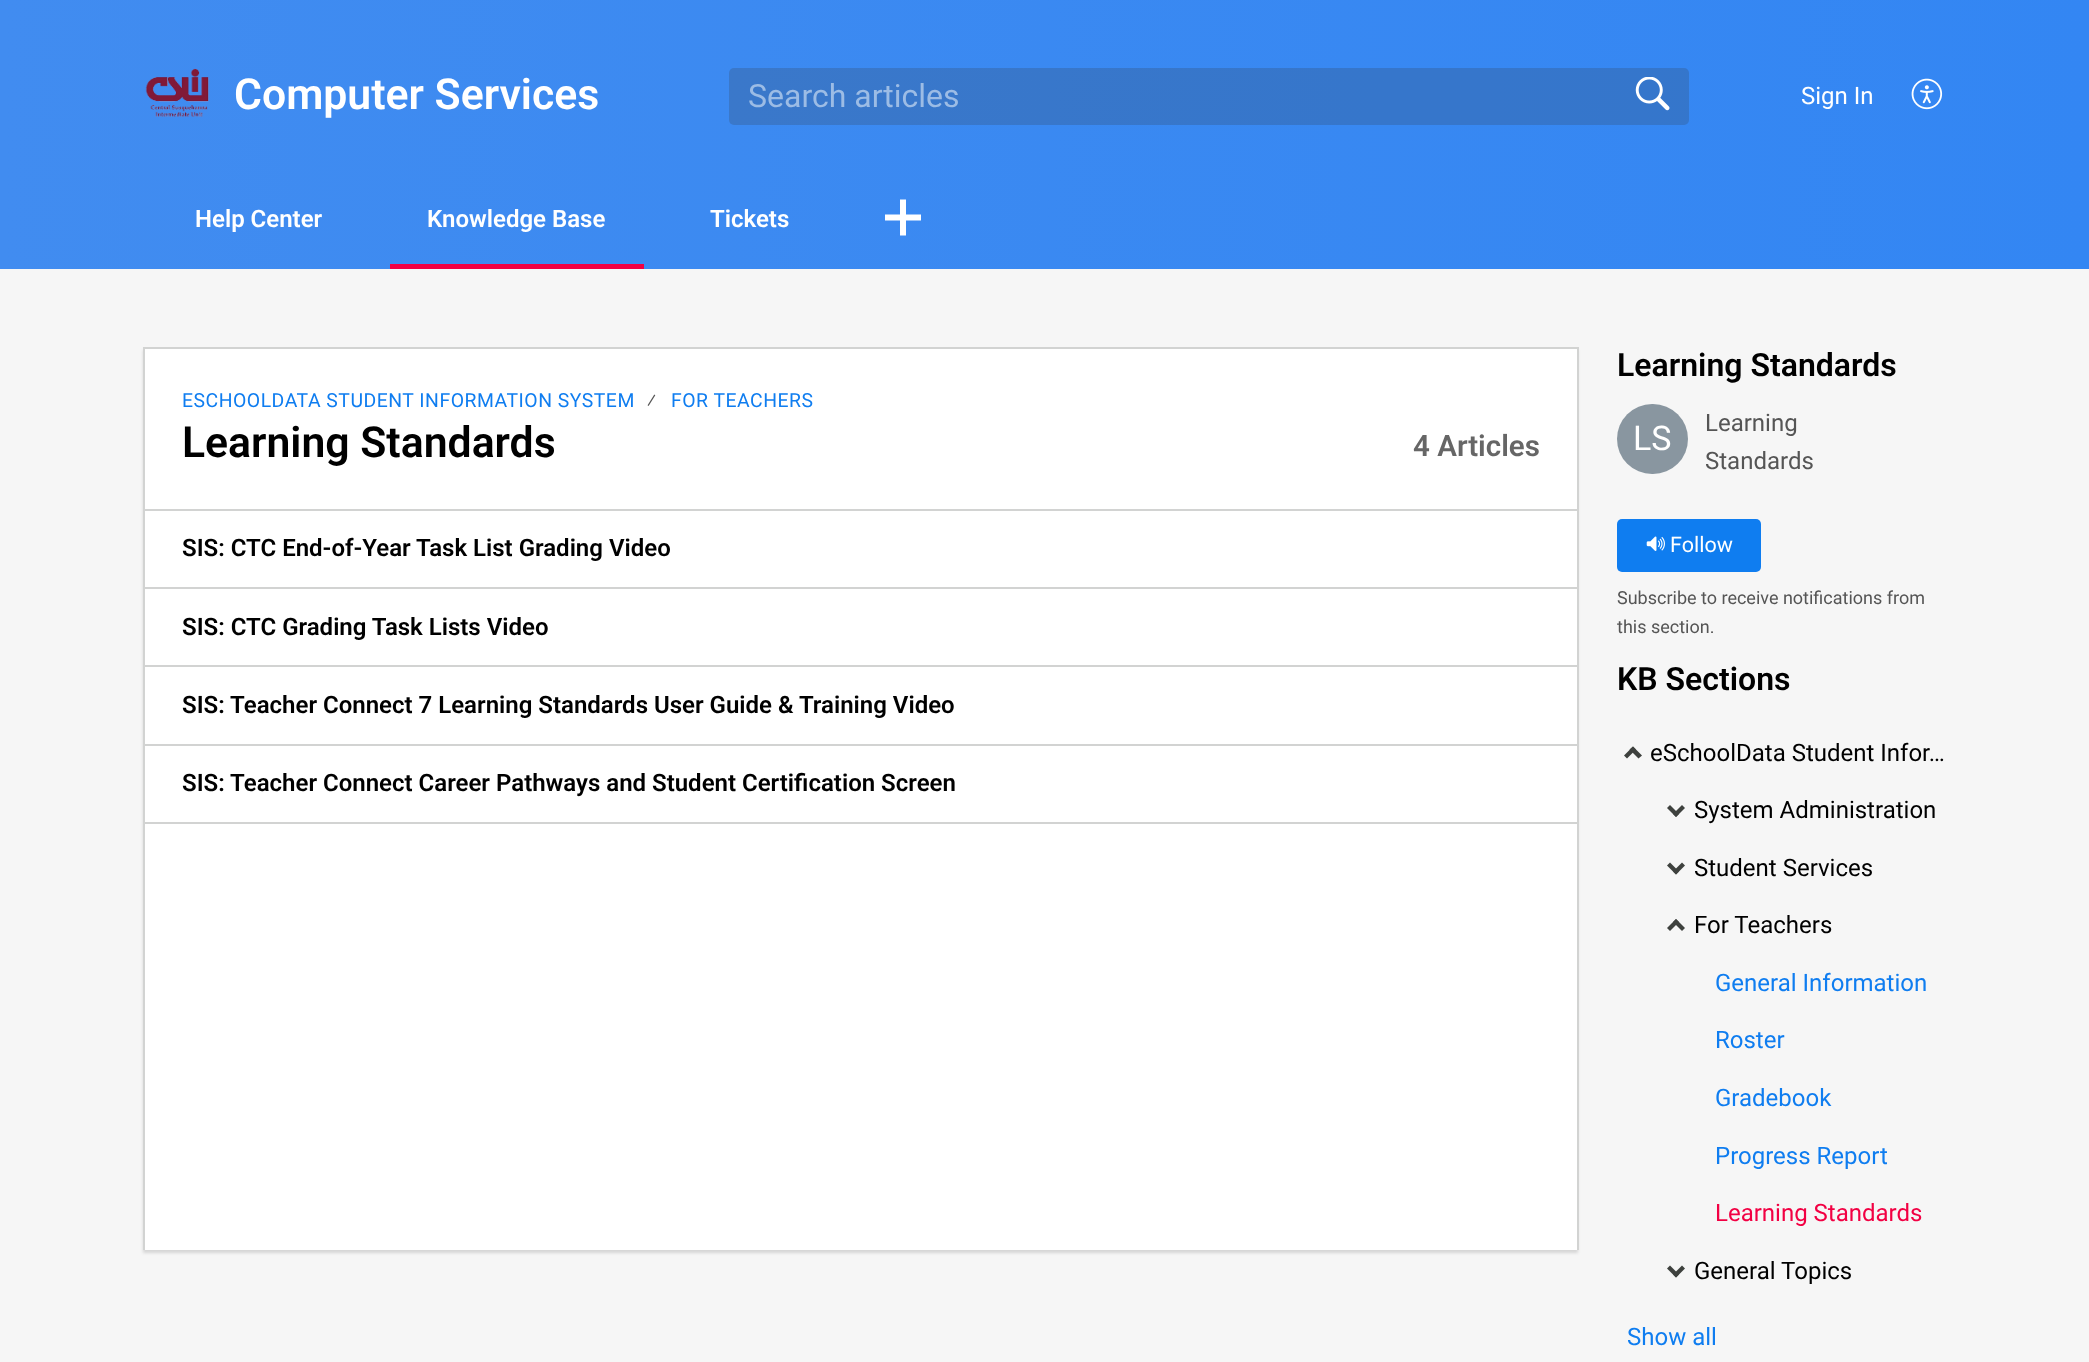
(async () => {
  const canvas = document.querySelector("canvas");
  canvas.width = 2089;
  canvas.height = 1362;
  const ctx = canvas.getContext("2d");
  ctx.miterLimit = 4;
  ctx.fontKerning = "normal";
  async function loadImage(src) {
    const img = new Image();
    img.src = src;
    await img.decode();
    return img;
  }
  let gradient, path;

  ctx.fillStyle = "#f6f6f6";
  ctx.fillRect(0, 0, 2089, 1362);
  gradient = ctx.createLinearGradient(0, 134, 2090, 134);
  gradient.addColorStop(0, "#418cf0");
  gradient.addColorStop(1, "#3386f3");
  ctx.fillStyle = gradient;
  ctx.fillRect(0, 0, 2089, 269);
  ctx.drawImage(await loadImage("img/1.png"), 145, 68, 64, 49);
  ctx.fillStyle = "rgba(51, 51, 51, 0.2)";
  ctx.beginPath();
  ctx.roundRect(729, 68, 960, 57, 5);
  ctx.fill();
  ctx.drawImage(await loadImage("img/2.png"), 1635, 77, 35, 34);
  ctx.drawImage(await loadImage("img/3.png"), 1911, 78, 32, 32);
  ctx.fillStyle = "#f20043";
  ctx.fillRect(390, 264, 254, 5);
  ctx.fillStyle = "#ffffff";
  path = new Path2D("M921 220.5H906V235.5H900V220.5H885V214.5H900V199.5H906V214.5H921Z");
  ctx.fill(path);
  ctx.fillStyle = "rgba(32, 35, 32, 0.15)";
  ctx.filter = "blur(1.5px)";
  ctx.beginPath();
  ctx.rect(143, 350, 1435, 903);
  ctx.fill();
  ctx.filter = "none";
  for (const [x, y, w, h, color] of [
    [145, 349, 1432, 901, "#ffffff"],
    [143, 347, 1435, 2, "#d2d3d2"],
    [1577, 347, 2, 903, "#d2d3d2"],
    [143, 347, 2, 903, "#d2d3d2"],
    [144, 509, 1433, 2, "#d2d3d2"],
    [144, 587, 1433, 2, "#d2d3d2"],
    [144, 665, 1433, 2, "#d2d3d2"],
    [144, 744, 1433, 2, "#d2d3d2"],
    [144, 822, 1433, 2, "#d2d3d2"],
  ]) {
    ctx.fillStyle = color;
    ctx.fillRect(x, y, w, h);
  }
  ctx.fillStyle = "#8996a0";
  ctx.beginPath();
  ctx.roundRect(1617, 404, 71, 70, 35);
  ctx.fill();
  ctx.fillStyle = "#0f7df0";
  ctx.beginPath();
  ctx.roundRect(1617, 519, 144, 53, 5);
  ctx.fill();
  ctx.drawImage(await loadImage("img/4.png"), 1646, 536, 19, 15);
  ctx.fillStyle = "#3e413e";
  path = new Path2D("M1636 749.5L1627 758.5L1624 755.5L1633 746.5Z");
  ctx.fill(path);
  path = new Path2D("M1642 755.5L1638.5 758.5L1629.5 749.5L1633 746.5Z");
  ctx.fill(path);
  path = new Path2D("M1673 814L1682 805L1685 808L1676 817Z");
  ctx.fill(path);
  path = new Path2D("M1667 808L1670 805L1679 814L1676 817Z");
  ctx.fill(path);
  path = new Path2D("M1673 871.5L1682 862.5L1685 865.5L1676 874.5Z");
  ctx.fill(path);
  path = new Path2D("M1667 865.5L1670 862.5L1679 871.5L1676 874.5Z");
  ctx.fill(path);
  path = new Path2D("M1679 922L1670 931L1667 928L1676 919Z");
  ctx.fill(path);
  path = new Path2D("M1685 928L1682 931L1673 922L1676 919Z");
  ctx.fill(path);
  path = new Path2D("M1673 1274.5L1682 1265.5L1685 1268.5L1676 1277.5Z");
  ctx.fill(path);
  path = new Path2D("M1667 1268.5L1670 1265.5L1679 1274.5L1676 1277.5Z");
  ctx.fill(path);
  ctx.font = "600 42.75px Roboto";
  ctx.fillStyle = "#ffffff";
  ctx.fillText("Computer Services", 234, 109);
  ctx.font = "32px Roboto";
  ctx.fillStyle = "#9cbce5";
  ctx.fillText("Search articles", 748, 107);
  ctx.font = "24px Roboto";
  ctx.fillStyle = "#ffffff";
  ctx.fillText("Sign In", 1801, 104);
  ctx.font = "600 24px Roboto";
  for (const [text, x, y] of [
    ["Help Center", 195, 227],
    ["Knowledge Base", 427, 227],
    ["Tickets", 710, 227],
  ]) {
    ctx.fillText(text, x, y);
  }
  ctx.letterSpacing = "0.5px";
  ctx.font = "19.4px Roboto";
  ctx.fillStyle = "#0f7df0";
  ctx.fillText("ESCHOOLDATA STUDENT INFORMATION SYSTEM", 182, 407);
  ctx.fillStyle = "#555555";
  ctx.fillText("⁄", 647, 407);
  ctx.fillStyle = "#0f7df0";
  ctx.fillText("FOR TEACHERS", 671, 407);
  ctx.letterSpacing = "0px";
  ctx.font = "600 42.75px Roboto";
  ctx.fillStyle = "#000000";
  ctx.fillText("Learning Standards", 182, 457);
  ctx.font = "600 29.5px Roboto";
  ctx.fillStyle = "#666666";
  ctx.fillText("4 Articles", 1413, 456);
  ctx.font = "600 24px Roboto";
  ctx.fillStyle = "#000000";
  for (const [text, x, y] of [
    ["SIS: CTC End-of-Year Task List Grading Video", 182, 556],
    ["SIS: CTC Grading Task Lists Video", 182, 635],
    ["SIS: Teacher Connect 7 Learning Standards User Guide & Training Video", 182, 713],
    ["SIS: Teacher Connect Career Pathways and Student Certification Screen", 182, 791],
  ]) {
    ctx.fillText(text, x, y);
  }
  ctx.font = "600 32px Roboto";
  ctx.fillText("Learning Standards", 1617, 376);
  ctx.font = "34px Roboto";
  ctx.fillStyle = "#ffffff";
  ctx.fillText("LS", 1633, 450);
  ctx.font = "24px Roboto";
  ctx.fillStyle = "#555555";
  ctx.fillText("Learning", 1705, 431);
  ctx.fillText("Standards", 1705, 469);
  ctx.font = "21.5px Roboto";
  ctx.fillStyle = "#ffffff";
  ctx.fillText("Follow", 1670, 552);
  ctx.font = "18px Roboto";
  ctx.fillStyle = "#555555";
  ctx.fillText("Subscribe to receive notifications from", 1617, 604);
  ctx.fillText("this section.", 1617, 633);
  ctx.font = "600 32px Roboto";
  ctx.fillStyle = "#000000";
  ctx.fillText("KB Sections", 1617, 690);
  ctx.font = "24px Roboto";
  for (const [text, x, y] of [
    ["eSchoolData Student Infor…", 1650, 761],
    ["System Administration", 1694, 818],
    ["Student Services", 1694, 876],
    ["For Teachers", 1694, 933],
  ]) {
    ctx.fillText(text, x, y);
  }
  ctx.fillStyle = "#0f7df0";
  for (const [text, x, y] of [
    ["General Information", 1715, 991],
    ["Roster", 1715, 1048],
    ["Gradebook", 1715, 1106],
    ["Progress Report", 1715, 1164],
  ]) {
    ctx.fillText(text, x, y);
  }
  ctx.fillStyle = "#f20043";
  ctx.fillText("Learning Standards", 1715, 1221);
  ctx.fillStyle = "#000000";
  ctx.fillText("General Topics", 1694, 1279);
  ctx.fillStyle = "#0f7df0";
  ctx.fillText("Show all", 1627, 1345);
})();
